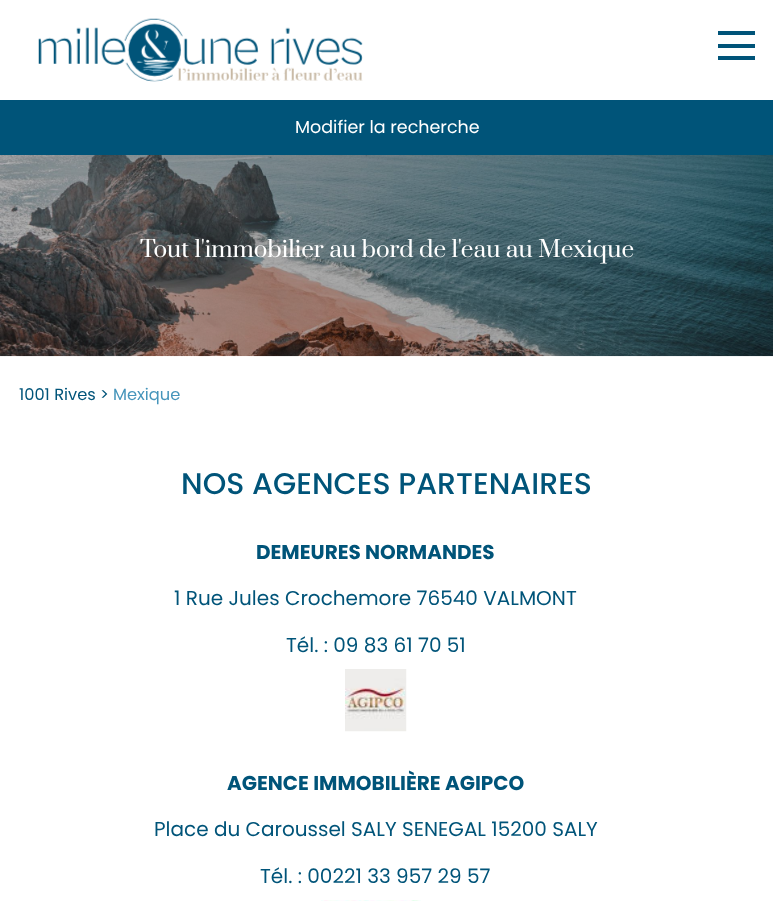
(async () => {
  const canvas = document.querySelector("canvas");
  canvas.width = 773;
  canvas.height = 901;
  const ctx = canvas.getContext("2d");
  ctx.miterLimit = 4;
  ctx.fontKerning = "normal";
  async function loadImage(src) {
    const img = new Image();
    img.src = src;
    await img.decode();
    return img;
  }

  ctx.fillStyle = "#ffffff";
  ctx.fillRect(0, 0, 773, 901);
  ctx.drawImage(await loadImage("img/1.png"), 38, 18, 325, 64);
  for (const [x, y, w, h, color] of [
    [718, 44, 37, 4, "#005479"],
    [718, 31, 37, 4, "#005479"],
    [718, 56, 37, 4, "#005479"],
    [0, 100, 773, 55, "#005479"],
  ]) {
    ctx.fillStyle = color;
    ctx.fillRect(x, y, w, h);
  }
  ctx.drawImage(await loadImage("img/2.png"), 0, 155, 773, 202);
  ctx.drawImage(await loadImage("img/3.png"), 345, 669, 62, 63);
  ctx.drawImage(await loadImage("img/4.png"), 321, 900, 100, 1);
  ctx.font = "17.5px Poppins";
  ctx.fillStyle = "#ffffff";
  ctx.fillText("Modifier la recherche", 295, 133);
  ctx.font = "22.5px Prata";
  ctx.fillText("Tout l'immobilier au bord de l'eau au Mexique", 140, 257);
  ctx.font = "16.25px Poppins";
  ctx.fillStyle = "#005479";
  ctx.fillText("1001 Rives >", 19, 400);
  ctx.fillStyle = "#4695bb";
  ctx.fillText("Mexique", 113, 400);
  ctx.font = "500 30px Poppins";
  ctx.fillStyle = "#005479";
  ctx.fillText("NOS AGENCES PARTENAIRES", 181, 494);
  ctx.font = "bold 20px Poppins";
  ctx.fillText("DEMEURES NORMANDES", 256, 559);
  ctx.font = "20px Poppins";
  ctx.fillText("1 Rue Jules Crochemore 76540 VALMONT", 174, 605);
  ctx.fillText("Tél. : 09 83 61 70 51", 286, 652);
  ctx.font = "bold 20px Poppins";
  ctx.fillText("AGENCE IMMOBILIÈRE AGIPCO", 227, 790);
  ctx.font = "20px Poppins";
  ctx.fillText("Place du Caroussel SALY SENEGAL 15200 SALY", 154, 836);
  ctx.fillText("Tél. : 00221 33 957 29 57", 260, 883);
})();
